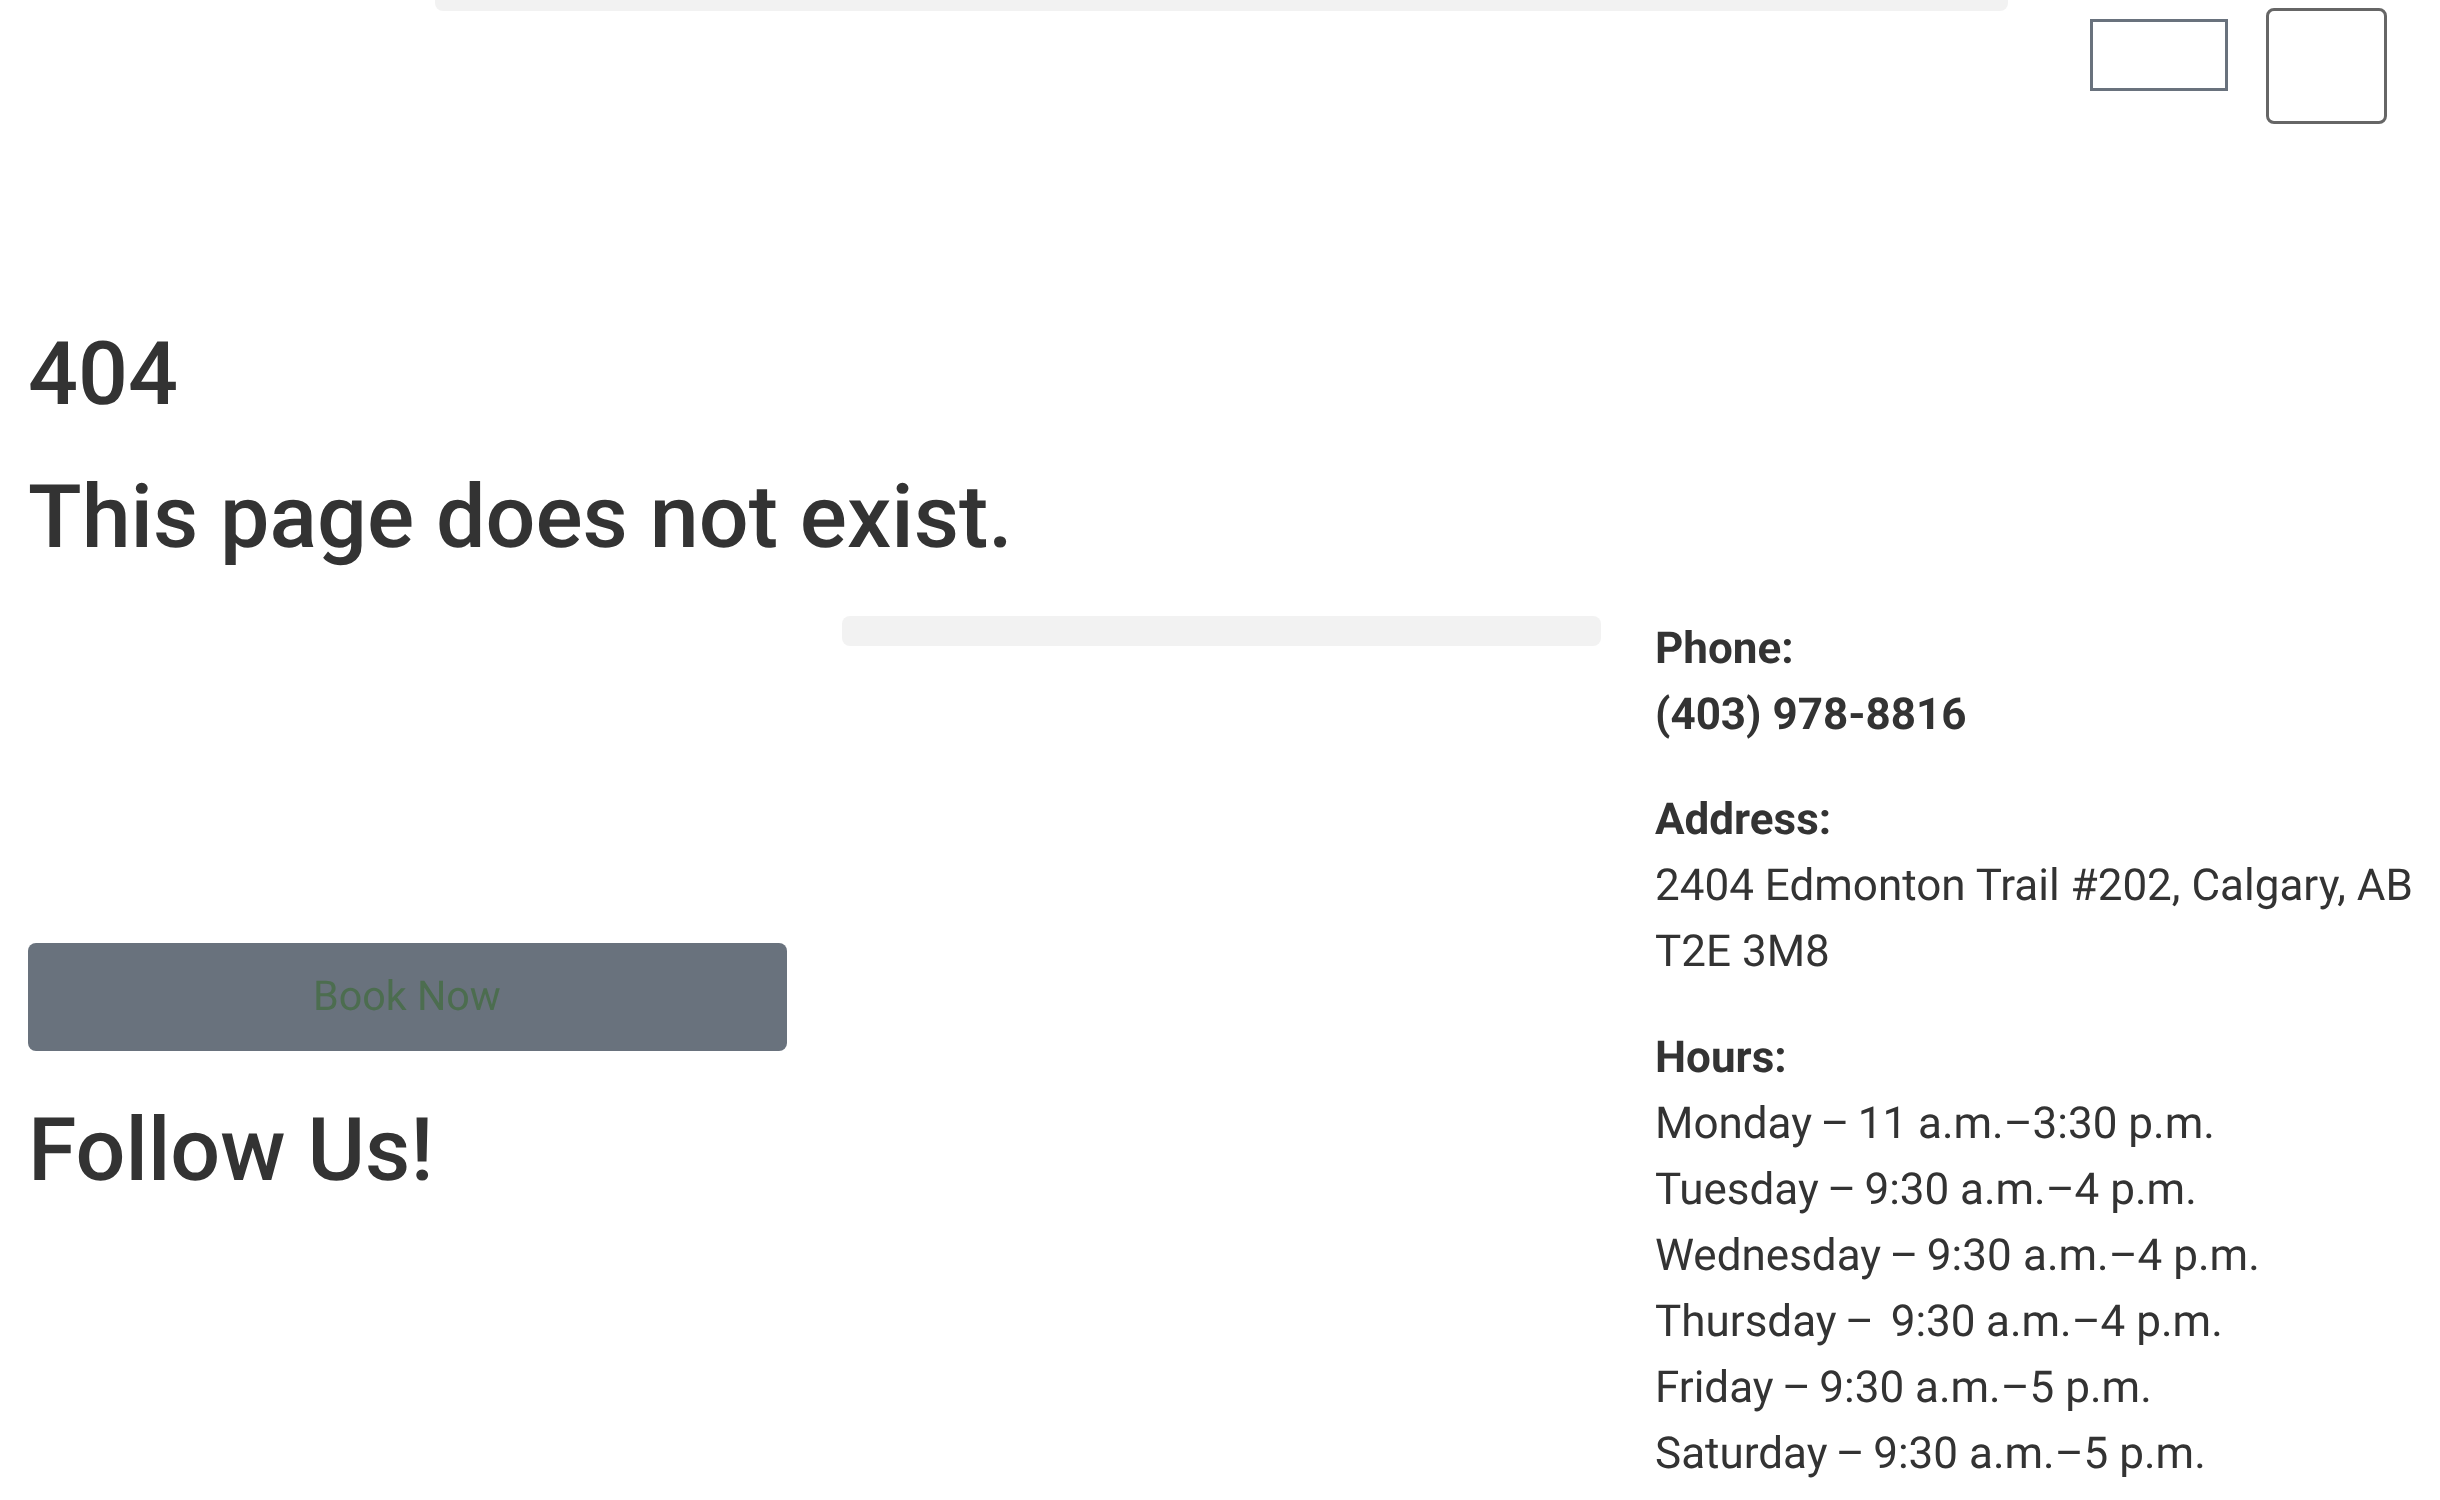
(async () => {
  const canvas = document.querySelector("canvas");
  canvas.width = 2440;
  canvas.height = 1500;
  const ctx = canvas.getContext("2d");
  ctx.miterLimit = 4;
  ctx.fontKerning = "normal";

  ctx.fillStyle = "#ffffff";
  ctx.fillRect(0, 0, 2440, 1500);
  ctx.fillStyle = "#f2f2f2";
  ctx.beginPath();
  ctx.roundRect(435, -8, 1573, 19, 8);
  ctx.fill();
  ctx.strokeStyle = "#69727d";
  ctx.lineWidth = 3;
  ctx.strokeRect(2091.5, 20.5, 135, 69);
  ctx.beginPath();
  ctx.roundRect(2267.5, 9.5, 118, 113, 6.5);
  ctx.strokeStyle = "#666666";
  ctx.stroke();
  ctx.fillStyle = "#69727d";
  ctx.beginPath();
  ctx.roundRect(28, 943, 759, 108, 8);
  ctx.fill();
  ctx.fillStyle = "#f2f2f2";
  ctx.beginPath();
  ctx.roundRect(842, 616, 759, 30, 8);
  ctx.fill();
  ctx.font = "500 88px Roboto";
  ctx.fillStyle = "#333333";
  ctx.fillText("404", 28, 404);
  ctx.fillText("This page does not exist.", 28, 547);
  ctx.font = "41.25px Roboto";
  ctx.fillStyle = "#4c6d4f";
  ctx.fillText("Book Now", 313, 1010);
  ctx.font = "500 88px Roboto";
  ctx.fillStyle = "#333333";
  ctx.fillText("Follow Us!", 28, 1180);
  ctx.font = "bold 44px Roboto";
  for (const [text, x, y] of [
    ["Phone:", 1655, 663],
    ["(403) 978-8816", 1655, 729],
    ["Address:", 1655, 834],
  ]) {
    ctx.fillText(text, x, y);
  }
  ctx.font = "44px Roboto";
  ctx.fillText("2404 Edmonton Trail #202, Calgary, AB", 1655, 900);
  ctx.fillText("T2E 3M8", 1655, 966);
  ctx.font = "bold 44px Roboto";
  ctx.fillText("Hours:", 1655, 1072);
  ctx.wordSpacing = "-2.5px";
  ctx.font = "44px Roboto";
  ctx.fillText("Monday – 11", 1655, 1138);
  ctx.wordSpacing = "0px";
  ctx.fillText("a.m.–3:30 p.m.", 1918, 1138);
  ctx.wordSpacing = "-2.5px";
  ctx.fillText("Tuesday – 9:30", 1655, 1204);
  ctx.wordSpacing = "0px";
  ctx.fillText("a.m.–4 p.m.", 1960, 1204);
  ctx.wordSpacing = "-2.5px";
  ctx.fillText("Wednesday – 9:30", 1655, 1270);
  ctx.wordSpacing = "0px";
  ctx.fillText("a.m.–4 p.m.", 2023, 1270);
  ctx.wordSpacing = "-2.5px";
  ctx.fillText("Thursday –  9:30", 1655, 1336);
  ctx.wordSpacing = "0px";
  ctx.fillText("a.m.–4 p.m.", 1986, 1336);
  ctx.wordSpacing = "-2.5px";
  ctx.fillText("Friday – 9:30", 1655, 1402);
  ctx.wordSpacing = "0px";
  ctx.fillText("a.m.–5 p.m.", 1915, 1402);
  ctx.wordSpacing = "-2.5px";
  ctx.fillText("Saturday – 9:30", 1655, 1468);
  ctx.wordSpacing = "0px";
  ctx.fillText("a.m.–5 p.m.", 1969, 1468);
})();
